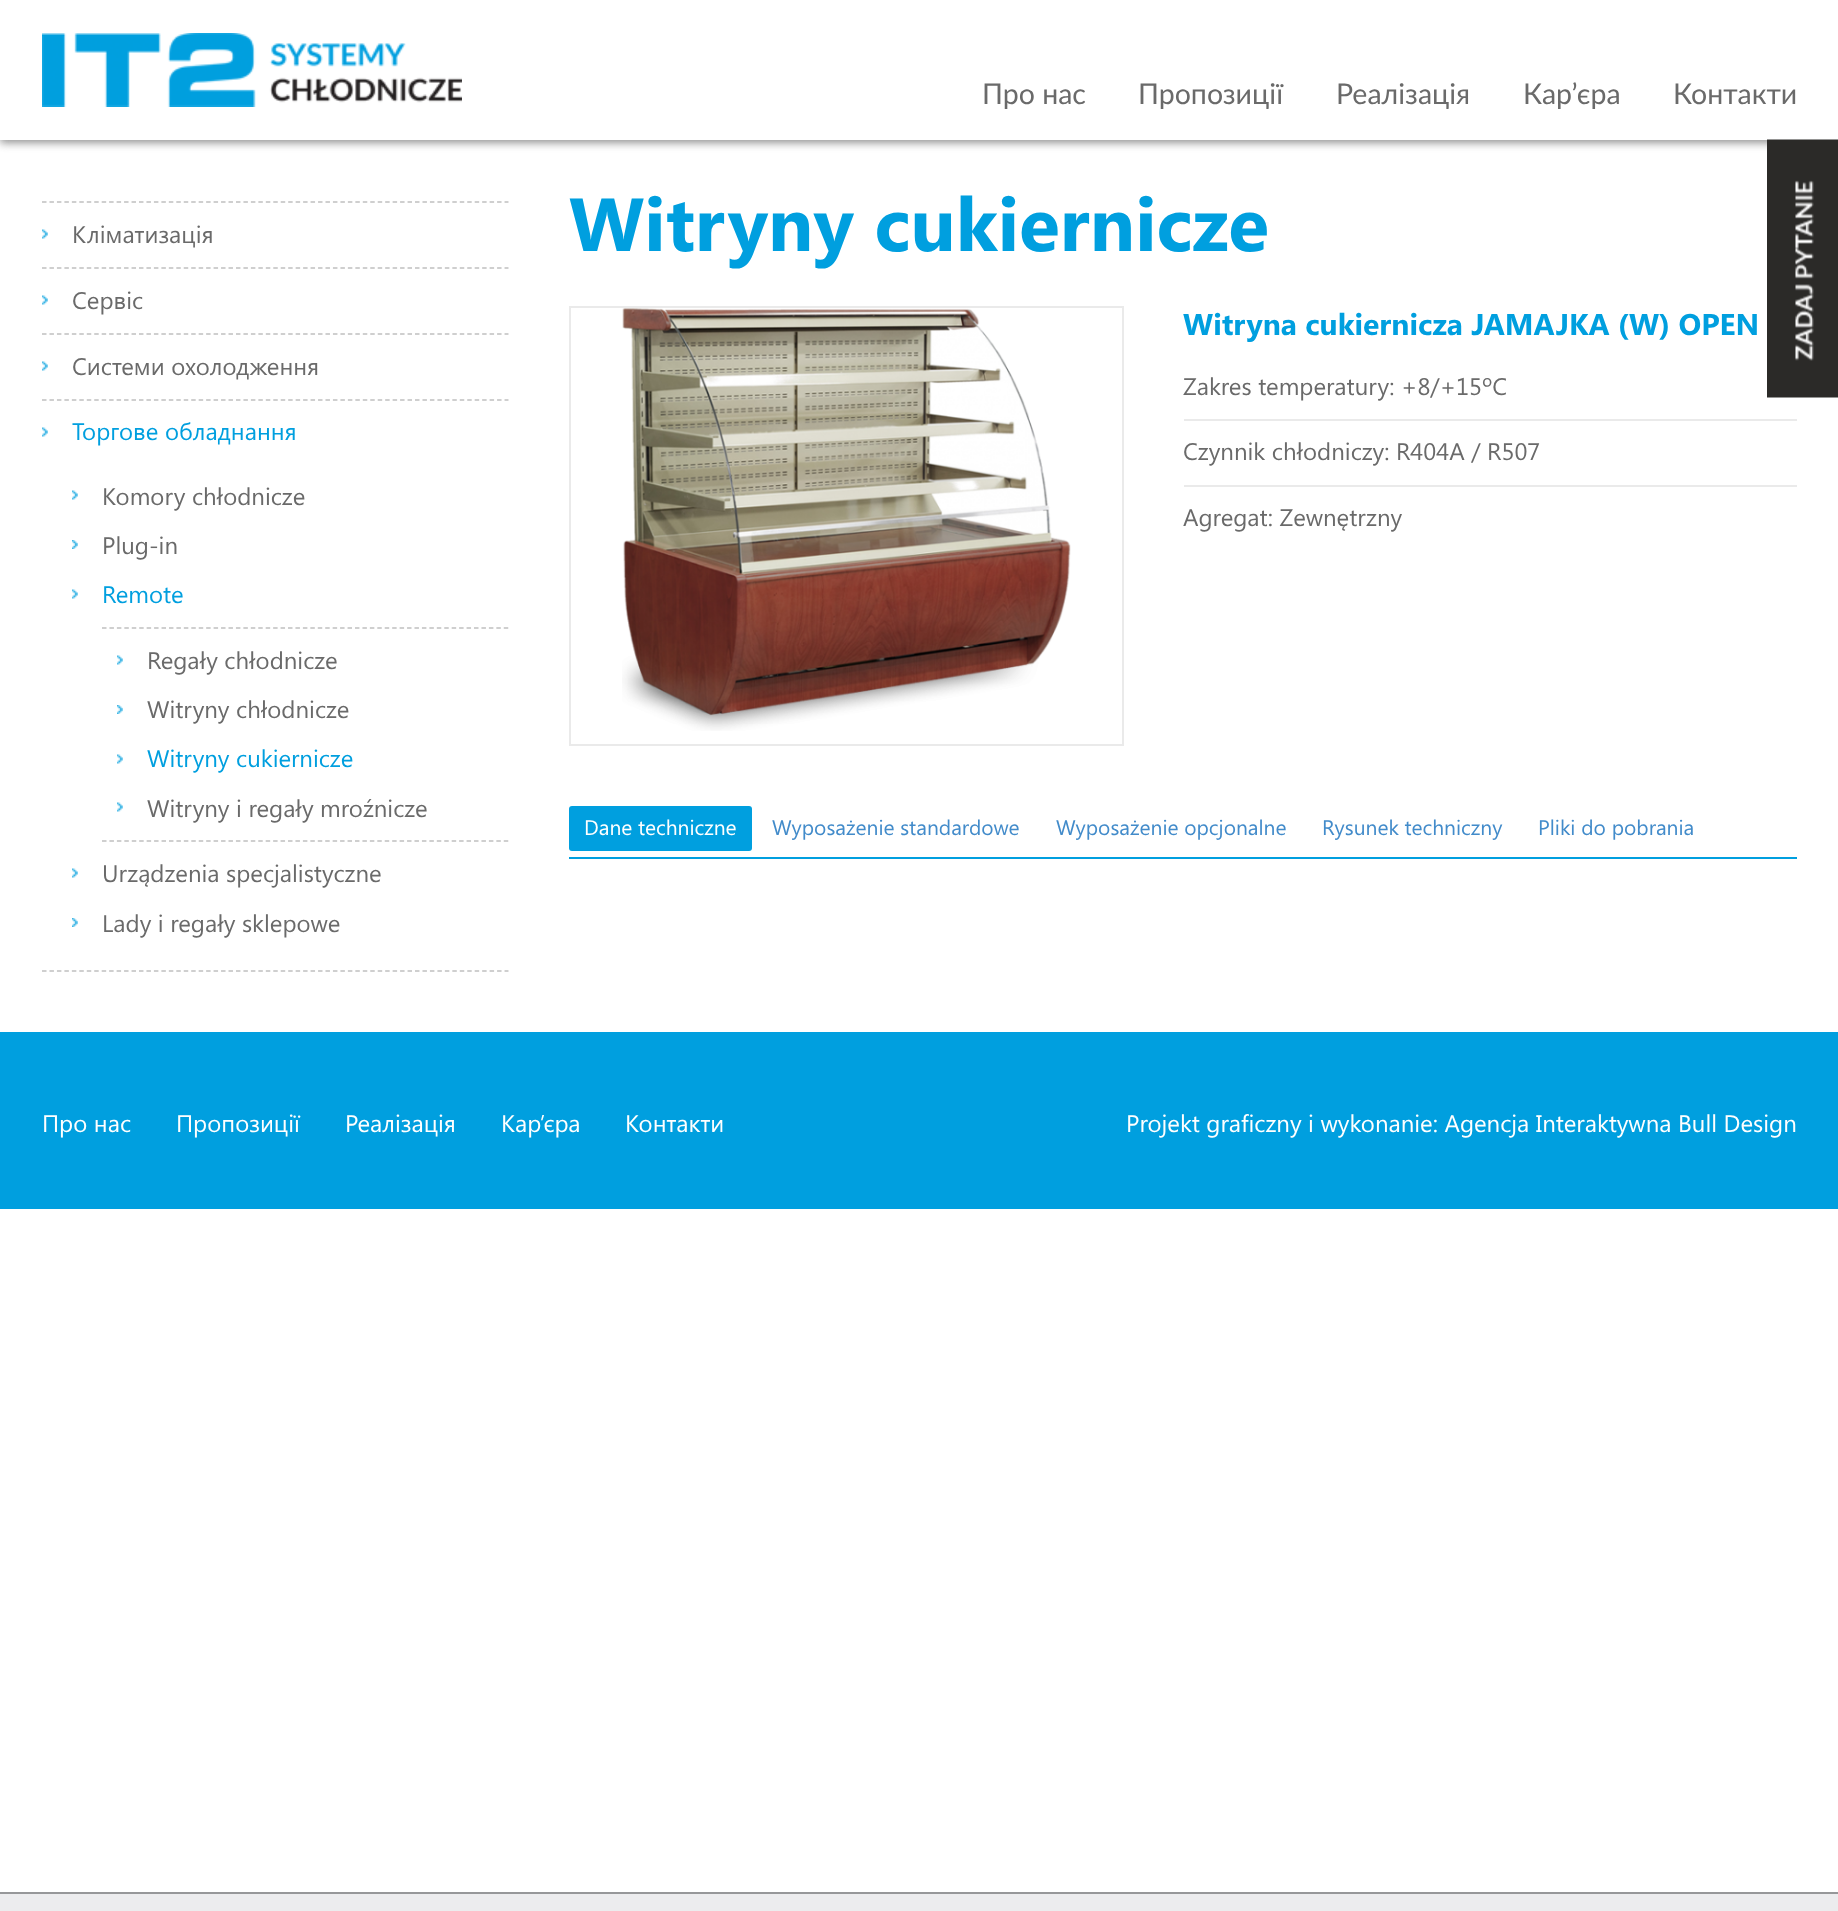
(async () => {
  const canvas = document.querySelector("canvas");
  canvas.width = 1838;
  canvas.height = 1911;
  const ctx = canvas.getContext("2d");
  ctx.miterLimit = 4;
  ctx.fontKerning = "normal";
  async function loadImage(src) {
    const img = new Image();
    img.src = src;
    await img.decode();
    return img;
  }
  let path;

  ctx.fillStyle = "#ffffff";
  ctx.fillRect(0, 0, 1838, 1911);
  ctx.fillStyle = "#939393";
  ctx.filter = "blur(4.5px)";
  ctx.beginPath();
  ctx.rect(0, 3, 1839, 140);
  ctx.fill();
  ctx.filter = "none";
  ctx.fillStyle = "#ffffff";
  ctx.fillRect(0, 0, 1838, 140);
  ctx.drawImage(await loadImage("img/1.png"), 42, 33, 420, 74);
  ctx.drawImage(await loadImage("img/2.png"), 42, 229, 6, 10);
  path = new Path2D("M42 202H508.5");
  ctx.strokeStyle = "#c0c0c0";
  ctx.lineWidth = 1.5;
  ctx.setLineDash([4.5, 2.96]);
  ctx.stroke(path);
  path = new Path2D("M42 268H508.5");
  ctx.stroke(path);
  ctx.drawImage(await loadImage("img/2.png"), 42, 295, 6, 10);
  path = new Path2D("M42 334H508.5");
  ctx.stroke(path);
  ctx.drawImage(await loadImage("img/2.png"), 42, 361, 6, 10);
  path = new Path2D("M42 400H508.5");
  ctx.stroke(path);
  ctx.drawImage(await loadImage("img/2.png"), 42, 427, 6, 10);
  path = new Path2D("M42 971H508.5");
  ctx.stroke(path);
  ctx.drawImage(await loadImage("img/2.png"), 72, 490, 6, 10);
  ctx.drawImage(await loadImage("img/3.png"), 72, 540, 6, 9);
  ctx.drawImage(await loadImage("img/2.png"), 72, 589, 6, 10);
  path = new Path2D("M102 628H508.5");
  ctx.setLineDash([4.5, 2.94]);
  ctx.stroke(path);
  path = new Path2D("M102 841H508.5");
  ctx.stroke(path);
  ctx.drawImage(await loadImage("img/2.png"), 117, 655, 6, 10);
  ctx.drawImage(await loadImage("img/3.png"), 117, 705, 6, 9);
  ctx.drawImage(await loadImage("img/2.png"), 117, 754, 6, 10);
  ctx.drawImage(await loadImage("img/2.png"), 117, 802, 6, 10);
  ctx.drawImage(await loadImage("img/2.png"), 72, 868, 6, 10);
  ctx.drawImage(await loadImage("img/3.png"), 72, 918, 6, 9);
  ctx.strokeStyle = "#eaeaea";
  ctx.lineWidth = 2;
  ctx.setLineDash([]);
  ctx.strokeRect(570, 307, 553, 438);
  ctx.drawImage(await loadImage("img/4.png"), 622, 308, 449, 423);
  for (const [x, y, w, h, color] of [
    [1184, 419, 613, 2, "#eaeaea"],
    [1184, 485, 613, 2, "#eaeaea"],
    [569, 857, 1228, 2, "#009fdf"],
  ]) {
    ctx.fillStyle = color;
    ctx.fillRect(x, y, w, h);
  }
  ctx.beginPath();
  ctx.roundRect(569, 806, 183, 45, 3);
  ctx.fill();
  ctx.drawImage(await loadImage("img/5.png"), 1767, 139, 71, 259);
  for (const [x, y, w, h, color] of [
    [0, 1032, 1838, 177, "#009fdf"],
    [0, 1894, 1838, 17, "#ececee"],
    [0, 1892, 1838, 2, "#969799"],
  ]) {
    ctx.fillStyle = color;
    ctx.fillRect(x, y, w, h);
  }
  ctx.font = "28.5px Lato";
  ctx.fillStyle = "#6a6a6a";
  for (const [text, x, y] of [
    ["Про нас", 982, 104],
    ["Пропозиції", 1138, 104],
    ["Реалізація", 1336, 104],
    ["Кар’єра", 1523, 104],
    ["Контакти", 1673, 104],
  ]) {
    ctx.fillText(text, x, y);
  }
  ctx.font = "24px Segoe UI";
  for (const [text, x, y] of [
    ["Кліматизація", 72, 243],
    ["Сервіс", 72, 309],
    ["Системи охолодження", 72, 375],
  ]) {
    ctx.fillText(text, x, y);
  }
  ctx.fillStyle = "#009fdf";
  ctx.fillText("Торгове обладнання", 72, 440);
  ctx.fillStyle = "#6a6a6a";
  ctx.fillText("Komory chłodnicze", 102, 505);
  ctx.fillText("Plug-in", 102, 554);
  ctx.fillStyle = "#009fdf";
  ctx.fillText("Remote", 102, 603);
  ctx.fillStyle = "#6a6a6a";
  ctx.fillText("Regały chłodnicze", 147, 669);
  ctx.fillText("Witryny chłodnicze", 147, 718);
  ctx.fillStyle = "#009fdf";
  ctx.fillText("Witryny cukiernicze", 147, 767);
  ctx.fillStyle = "#6a6a6a";
  for (const [text, x, y] of [
    ["Witryny i regały mroźnicze", 147, 817],
    ["Urządzenia specjalistyczne", 102, 882],
    ["Lady i regały sklepowe", 102, 932],
  ]) {
    ctx.fillText(text, x, y);
  }
  ctx.font = "bold 75px Segoe UI";
  ctx.fillStyle = "#009fdf";
  ctx.fillText("Witryny cukiernicze", 569, 251);
  ctx.font = "bold 30px Segoe UI";
  ctx.fillText("Witryna cukiernicza JAMAJKA (W) OPEN", 1183, 335);
  ctx.font = "24px Segoe UI";
  ctx.fillStyle = "#6a6a6a";
  for (const [text, x, y] of [
    ["Zakres temperatury: +8/+15ºC", 1183, 395],
    ["Czynnik chłodniczy: R404A / R507", 1183, 460],
    ["Agregat: Zewnętrzny", 1183, 526],
  ]) {
    ctx.fillText(text, x, y);
  }
  ctx.font = "21px Segoe UI";
  ctx.fillStyle = "#ffffff";
  ctx.fillText("Dane techniczne", 584, 835);
  ctx.fillStyle = "#428bca";
  for (const [text, x, y] of [
    ["Wyposażenie standardowe", 772, 835],
    ["Wyposażenie opcjonalne", 1056, 835],
    ["Rysunek techniczny", 1322, 835],
    ["Pliki do pobrania", 1538, 835],
  ]) {
    ctx.fillText(text, x, y);
  }
  ctx.font = "24px Segoe UI";
  ctx.fillStyle = "#ffffff";
  for (const [text, x, y] of [
    ["Про нас", 42, 1132],
    ["Пропозиції", 176, 1132],
    ["Реалізація", 345, 1132],
    ["Кар’єра", 501, 1132],
    ["Контакти", 625, 1132],
    ["Projekt graficzny i wykonanie: Agencja Interaktywna Bull Design", 1126, 1132],
  ]) {
    ctx.fillText(text, x, y);
  }
})();
